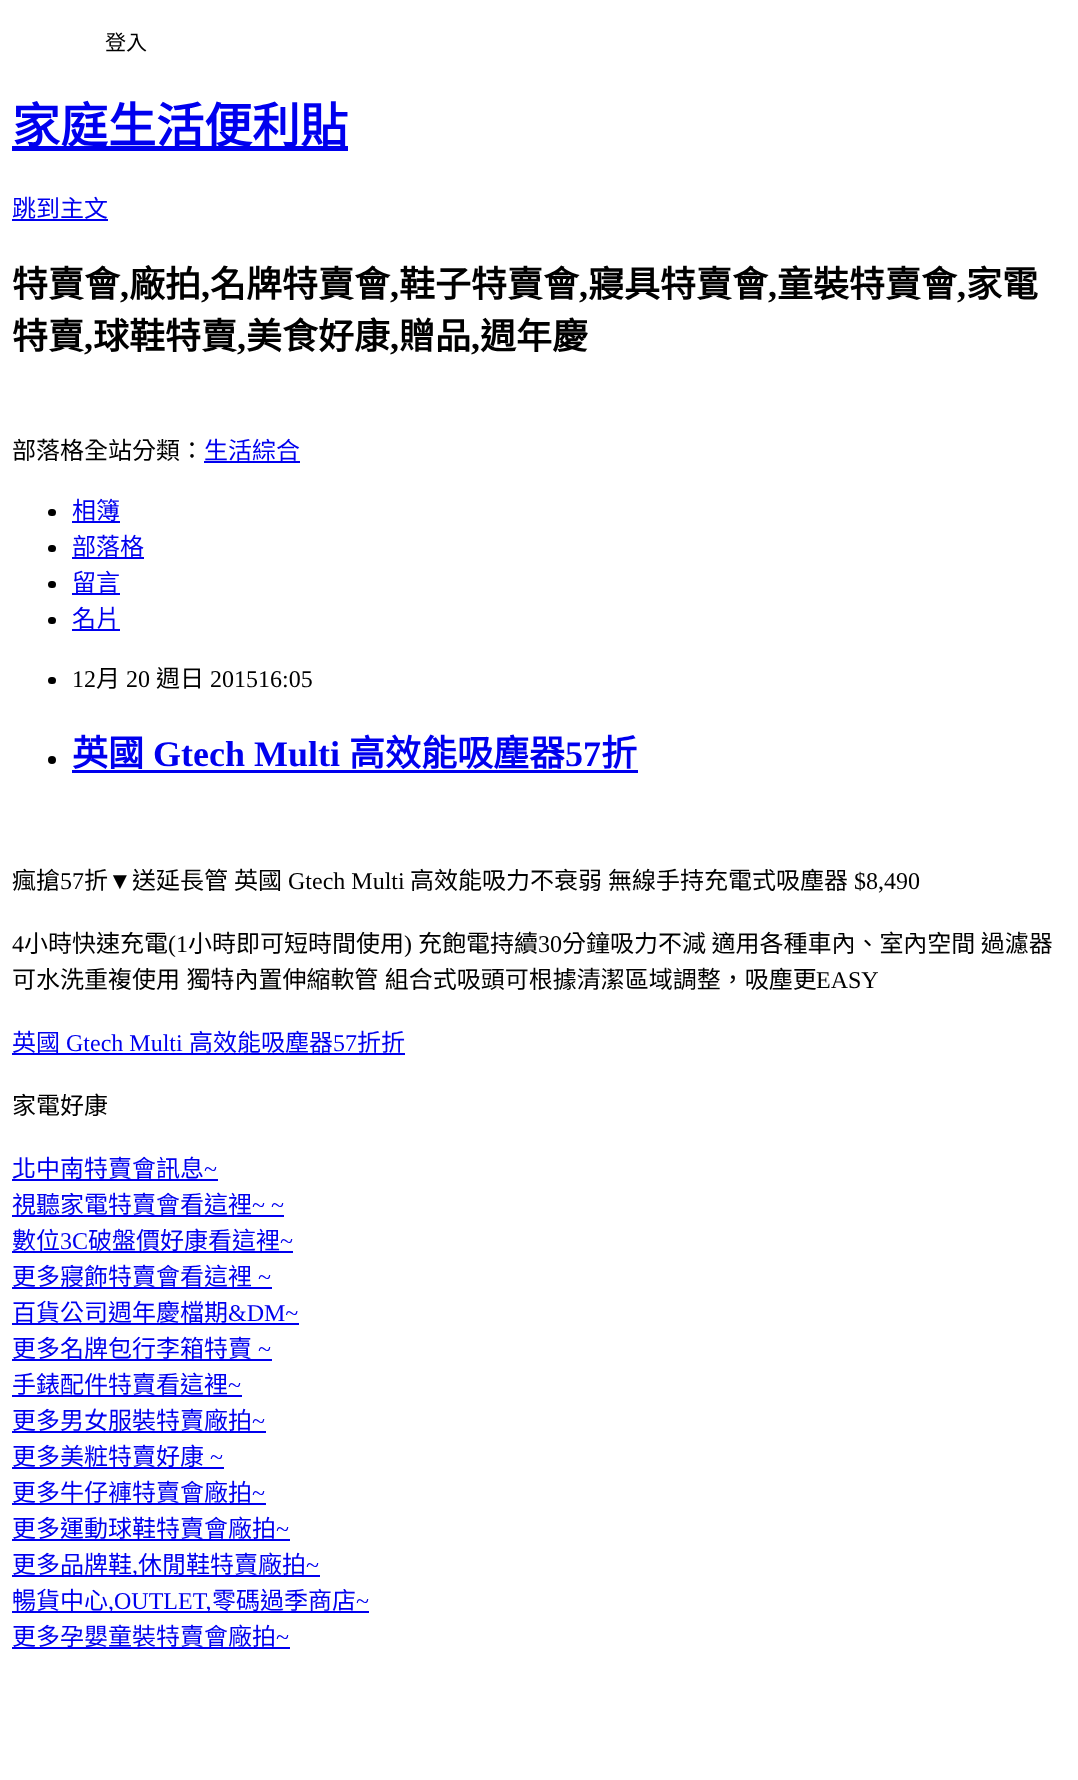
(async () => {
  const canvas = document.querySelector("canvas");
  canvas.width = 1078;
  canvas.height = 1780;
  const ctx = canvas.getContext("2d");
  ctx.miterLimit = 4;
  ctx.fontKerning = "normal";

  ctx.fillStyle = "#ffffff";
  ctx.fillRect(0, 0, 1078, 1780);
  for (const [x, y, w, h, color] of [
    [12, 146, 336, 5, "#0000ee"],
    [12, 219, 96, 2, "#0000ee"],
    [204, 461, 96, 2, "#0000ee"],
  ]) {
    ctx.fillStyle = color;
    ctx.fillRect(x, y, w, h);
  }
  ctx.fillStyle = "#000000";
  ctx.beginPath();
  ctx.roundRect(48, 509, 8, 7, 3.5);
  ctx.fill();
  ctx.fillStyle = "#0000ee";
  ctx.fillRect(72, 521, 48, 2);
  ctx.fillStyle = "#000000";
  ctx.beginPath();
  ctx.roundRect(48, 545, 8, 7, 3.5);
  ctx.fill();
  ctx.fillStyle = "#0000ee";
  ctx.fillRect(72, 557, 72, 2);
  ctx.fillStyle = "#000000";
  ctx.beginPath();
  ctx.roundRect(48, 581, 8, 7, 3.5);
  ctx.fill();
  ctx.fillStyle = "#0000ee";
  ctx.fillRect(72, 593, 48, 2);
  ctx.fillStyle = "#000000";
  ctx.beginPath();
  ctx.roundRect(48, 617, 8, 7, 3.5);
  ctx.fill();
  ctx.fillStyle = "#0000ee";
  ctx.fillRect(72, 629, 48, 2);
  ctx.fillStyle = "#000000";
  ctx.beginPath();
  ctx.roundRect(48, 677, 8, 7, 3.5);
  ctx.fill();
  ctx.beginPath();
  ctx.arc(52, 760, 4, 0, Math.PI * 2);
  ctx.fill();
  for (const [x, y, w, h, color] of [
    [72, 770, 566, 3, "#0000ee"],
    [12, 1053, 393, 2, "#0000ee"],
    [12, 1179, 206, 2, "#0000ee"],
    [12, 1215, 272, 2, "#0000ee"],
    [12, 1251, 281, 2, "#0000ee"],
    [12, 1287, 260, 2, "#0000ee"],
    [12, 1323, 287, 2, "#0000ee"],
    [12, 1359, 260, 2, "#0000ee"],
    [12, 1395, 230, 2, "#0000ee"],
    [12, 1431, 254, 2, "#0000ee"],
    [12, 1467, 212, 2, "#0000ee"],
    [12, 1503, 254, 2, "#0000ee"],
    [12, 1539, 278, 2, "#0000ee"],
    [12, 1575, 308, 2, "#0000ee"],
    [12, 1611, 357, 2, "#0000ee"],
    [12, 1647, 278, 2, "#0000ee"],
  ]) {
    ctx.fillStyle = color;
    ctx.fillRect(x, y, w, h);
  }
  ctx.font = "21px Noto Sans CJK TC";
  ctx.fillStyle = "#000000";
  ctx.fillText("登入", 105, 50);
  ctx.font = "bold 48px Noto Sans CJK TC";
  ctx.fillStyle = "#0000ee";
  ctx.fillText("家庭生活便利貼", 12, 143);
  ctx.font = "24px Noto Sans CJK TC";
  ctx.fillText("跳到主文", 12, 217);
  ctx.font = "bold 36px Noto Sans CJK TC";
  ctx.fillStyle = "#000000";
  ctx.fillText("特賣會", 12, 297);
  ctx.font = "bold 36px Liberation Serif";
  ctx.fillText(",", 120, 297);
  ctx.font = "bold 36px Noto Sans CJK TC";
  ctx.fillText("廠拍", 129, 297);
  ctx.font = "bold 36px Liberation Serif";
  ctx.fillText(",", 201, 297);
  ctx.font = "bold 36px Noto Sans CJK TC";
  ctx.fillText("名牌特賣會", 210, 297);
  ctx.font = "bold 36px Liberation Serif";
  ctx.fillText(",", 390, 297);
  ctx.font = "bold 36px Noto Sans CJK TC";
  ctx.fillText("鞋子特賣會", 399, 297);
  ctx.font = "bold 36px Liberation Serif";
  ctx.fillText(",", 579, 297);
  ctx.font = "bold 36px Noto Sans CJK TC";
  ctx.fillText("寢具特賣會", 588, 297);
  ctx.font = "bold 36px Liberation Serif";
  ctx.fillText(",", 768, 297);
  ctx.font = "bold 36px Noto Sans CJK TC";
  ctx.fillText("童裝特賣會", 777, 297);
  ctx.font = "bold 36px Liberation Serif";
  ctx.fillText(",", 957, 297);
  ctx.font = "bold 36px Noto Sans CJK TC";
  ctx.fillText("家電", 966, 297);
  ctx.fillText("特賣", 12, 349);
  ctx.font = "bold 36px Liberation Serif";
  ctx.fillText(",", 84, 349);
  ctx.font = "bold 36px Noto Sans CJK TC";
  ctx.fillText("球鞋特賣", 93, 349);
  ctx.font = "bold 36px Liberation Serif";
  ctx.fillText(",", 237, 349);
  ctx.font = "bold 36px Noto Sans CJK TC";
  ctx.fillText("美食好康", 246, 349);
  ctx.font = "bold 36px Liberation Serif";
  ctx.fillText(",", 390, 349);
  ctx.font = "bold 36px Noto Sans CJK TC";
  ctx.fillText("贈品", 399, 349);
  ctx.font = "bold 36px Liberation Serif";
  ctx.fillText(",", 471, 349);
  ctx.font = "bold 36px Noto Sans CJK TC";
  ctx.fillText("週年慶", 480, 349);
  ctx.font = "24px Noto Sans CJK TC";
  ctx.fillText("部落格全站分類：", 12, 459);
  ctx.fillStyle = "#0000ee";
  for (const [text, x, y] of [
    ["生活綜合", 204, 459],
    ["相簿", 72, 519],
    ["部落格", 72, 555],
    ["留言", 72, 591],
    ["名片", 72, 627],
  ]) {
    ctx.fillText(text, x, y);
  }
  ctx.font = "24px Liberation Serif";
  ctx.fillStyle = "#000000";
  ctx.fillText("12", 72, 687);
  ctx.font = "24px Noto Sans CJK TC";
  ctx.fillText("月", 96, 687);
  ctx.font = "24px Liberation Serif";
  ctx.fillText("20", 126, 687);
  ctx.font = "24px Noto Sans CJK TC";
  ctx.fillText("週日", 156, 687);
  ctx.font = "24px Liberation Serif";
  ctx.fillText("201516:05", 210, 687);
  ctx.font = "bold 36px Noto Sans CJK TC";
  ctx.fillStyle = "#0000ee";
  ctx.fillText("英國", 72, 766);
  ctx.font = "bold 36px Liberation Serif";
  ctx.fillText("Gtech Multi", 153, 766);
  ctx.font = "bold 36px Noto Sans CJK TC";
  ctx.fillText("高效能吸塵器", 349, 766);
  ctx.font = "bold 36px Liberation Serif";
  ctx.fillText("57", 565, 766);
  ctx.font = "bold 36px Noto Sans CJK TC";
  ctx.fillText("折", 601, 766);
  ctx.font = "24px Noto Sans CJK TC";
  ctx.fillStyle = "#000000";
  ctx.fillText("瘋搶", 12, 889);
  ctx.font = "24px Liberation Serif";
  ctx.fillText("57", 60, 889);
  ctx.font = "24px Noto Sans CJK TC";
  ctx.fillText("折", 84, 889);
  ctx.font = "24px Liberation Serif";
  ctx.fillText("▼", 108, 889);
  ctx.font = "24px Noto Sans CJK TC";
  ctx.fillText("送延長管", 132, 889);
  ctx.fillText("英國", 234, 889);
  ctx.font = "24px Liberation Serif";
  ctx.fillText("Gtech Multi", 288, 889);
  ctx.font = "24px Noto Sans CJK TC";
  ctx.fillText("高效能吸力不衰弱", 410, 889);
  ctx.fillText("無線手持充電式吸塵器", 608, 889);
  ctx.font = "24px Liberation Serif";
  ctx.fillText("$8,490", 854, 889);
  ctx.fillText("4", 12, 952);
  ctx.font = "24px Noto Sans CJK TC";
  ctx.fillText("小時快速充電", 24, 952);
  ctx.font = "24px Liberation Serif";
  ctx.fillText("(1", 168, 952);
  ctx.font = "24px Noto Sans CJK TC";
  ctx.fillText("小時即可短時間使用", 188, 952);
  ctx.font = "24px Liberation Serif";
  ctx.fillText(")", 404, 952);
  ctx.font = "24px Noto Sans CJK TC";
  ctx.fillText("充飽電持續", 418, 952);
  ctx.font = "24px Liberation Serif";
  ctx.fillText("30", 538, 952);
  ctx.font = "24px Noto Sans CJK TC";
  ctx.fillText("分鐘吸力不減 適用各種車內、室內空間 過濾器", 562, 952);
  ctx.wordSpacing = "1px";
  ctx.fillText("可水洗重複使用 獨特內置伸縮軟管 組合式吸頭可根據清潔區域調整，吸塵更", 12, 988);
  ctx.wordSpacing = "0px";
  ctx.font = "24px Liberation Serif";
  ctx.fillText("EASY", 816, 988);
  ctx.font = "24px Noto Sans CJK TC";
  ctx.fillStyle = "#0000ee";
  ctx.fillText("英國", 12, 1051);
  ctx.font = "24px Liberation Serif";
  ctx.fillText("Gtech Multi", 66, 1051);
  ctx.font = "24px Noto Sans CJK TC";
  ctx.fillText("高效能吸塵器", 189, 1051);
  ctx.font = "24px Liberation Serif";
  ctx.fillText("57", 333, 1051);
  ctx.font = "24px Noto Sans CJK TC";
  ctx.fillText("折折", 357, 1051);
  ctx.fillStyle = "#000000";
  ctx.fillText("家電好康", 12, 1114);
  ctx.fillStyle = "#0000ee";
  ctx.fillText("北中南特賣會訊息", 12, 1177);
  ctx.font = "24px Liberation Serif";
  ctx.fillText("~", 204, 1177);
  ctx.font = "24px Noto Sans CJK TC";
  ctx.fillText("視聽家電特賣會看這裡", 12, 1213);
  ctx.font = "24px Liberation Serif";
  ctx.fillText("~ ~", 252, 1213);
  ctx.font = "24px Noto Sans CJK TC";
  ctx.fillText("數位", 12, 1249);
  ctx.font = "24px Liberation Serif";
  ctx.fillText("3C", 60, 1249);
  ctx.font = "24px Noto Sans CJK TC";
  ctx.fillText("破盤價好康看這裡", 88, 1249);
  ctx.font = "24px Liberation Serif";
  ctx.fillText("~", 280, 1249);
  ctx.font = "24px Noto Sans CJK TC";
  ctx.fillText("更多寢飾特賣會看這裡", 12, 1285);
  ctx.font = "24px Liberation Serif";
  ctx.fillText("~", 258, 1285);
  ctx.font = "24px Noto Sans CJK TC";
  ctx.fillText("百貨公司週年慶檔期", 12, 1321);
  ctx.font = "24px Liberation Serif";
  ctx.fillText("&DM~", 228, 1321);
  ctx.font = "24px Noto Sans CJK TC";
  ctx.fillText("更多名牌包行李箱特賣", 12, 1357);
  ctx.font = "24px Liberation Serif";
  ctx.fillText("~", 258, 1357);
  ctx.font = "24px Noto Sans CJK TC";
  ctx.fillText("手錶配件特賣看這裡", 12, 1393);
  ctx.font = "24px Liberation Serif";
  ctx.fillText("~", 228, 1393);
  ctx.font = "24px Noto Sans CJK TC";
  ctx.fillText("更多男女服裝特賣廠拍", 12, 1429);
  ctx.font = "24px Liberation Serif";
  ctx.fillText("~", 252, 1429);
  ctx.font = "24px Noto Sans CJK TC";
  ctx.fillText("更多美粧特賣好康", 12, 1465);
  ctx.font = "24px Liberation Serif";
  ctx.fillText("~", 210, 1465);
  ctx.font = "24px Noto Sans CJK TC";
  ctx.fillText("更多牛仔褲特賣會廠拍", 12, 1501);
  ctx.font = "24px Liberation Serif";
  ctx.fillText("~", 252, 1501);
  ctx.font = "24px Noto Sans CJK TC";
  ctx.fillText("更多運動球鞋特賣會廠拍", 12, 1537);
  ctx.font = "24px Liberation Serif";
  ctx.fillText("~", 276, 1537);
  ctx.font = "24px Noto Sans CJK TC";
  ctx.fillText("更多品牌鞋", 12, 1573);
  ctx.fillText("休閒鞋特賣廠拍", 138, 1573);
  ctx.font = "24px Liberation Serif";
  ctx.fillText("~", 306, 1573);
  ctx.fillText(",", 132, 1573);
  ctx.font = "24px Noto Sans CJK TC";
  ctx.fillText("暢貨中心", 12, 1609);
  ctx.font = "24px Liberation Serif";
  ctx.fillText(",OUTLET,", 108, 1609);
  ctx.font = "24px Noto Sans CJK TC";
  ctx.fillText("零碼過季商店", 212, 1609);
  ctx.font = "24px Liberation Serif";
  ctx.fillText("~", 356, 1609);
  ctx.font = "24px Noto Sans CJK TC";
  ctx.fillText("更多孕嬰童裝特賣會廠拍", 12, 1645);
  ctx.font = "24px Liberation Serif";
  ctx.fillText("~", 276, 1645);
})();
